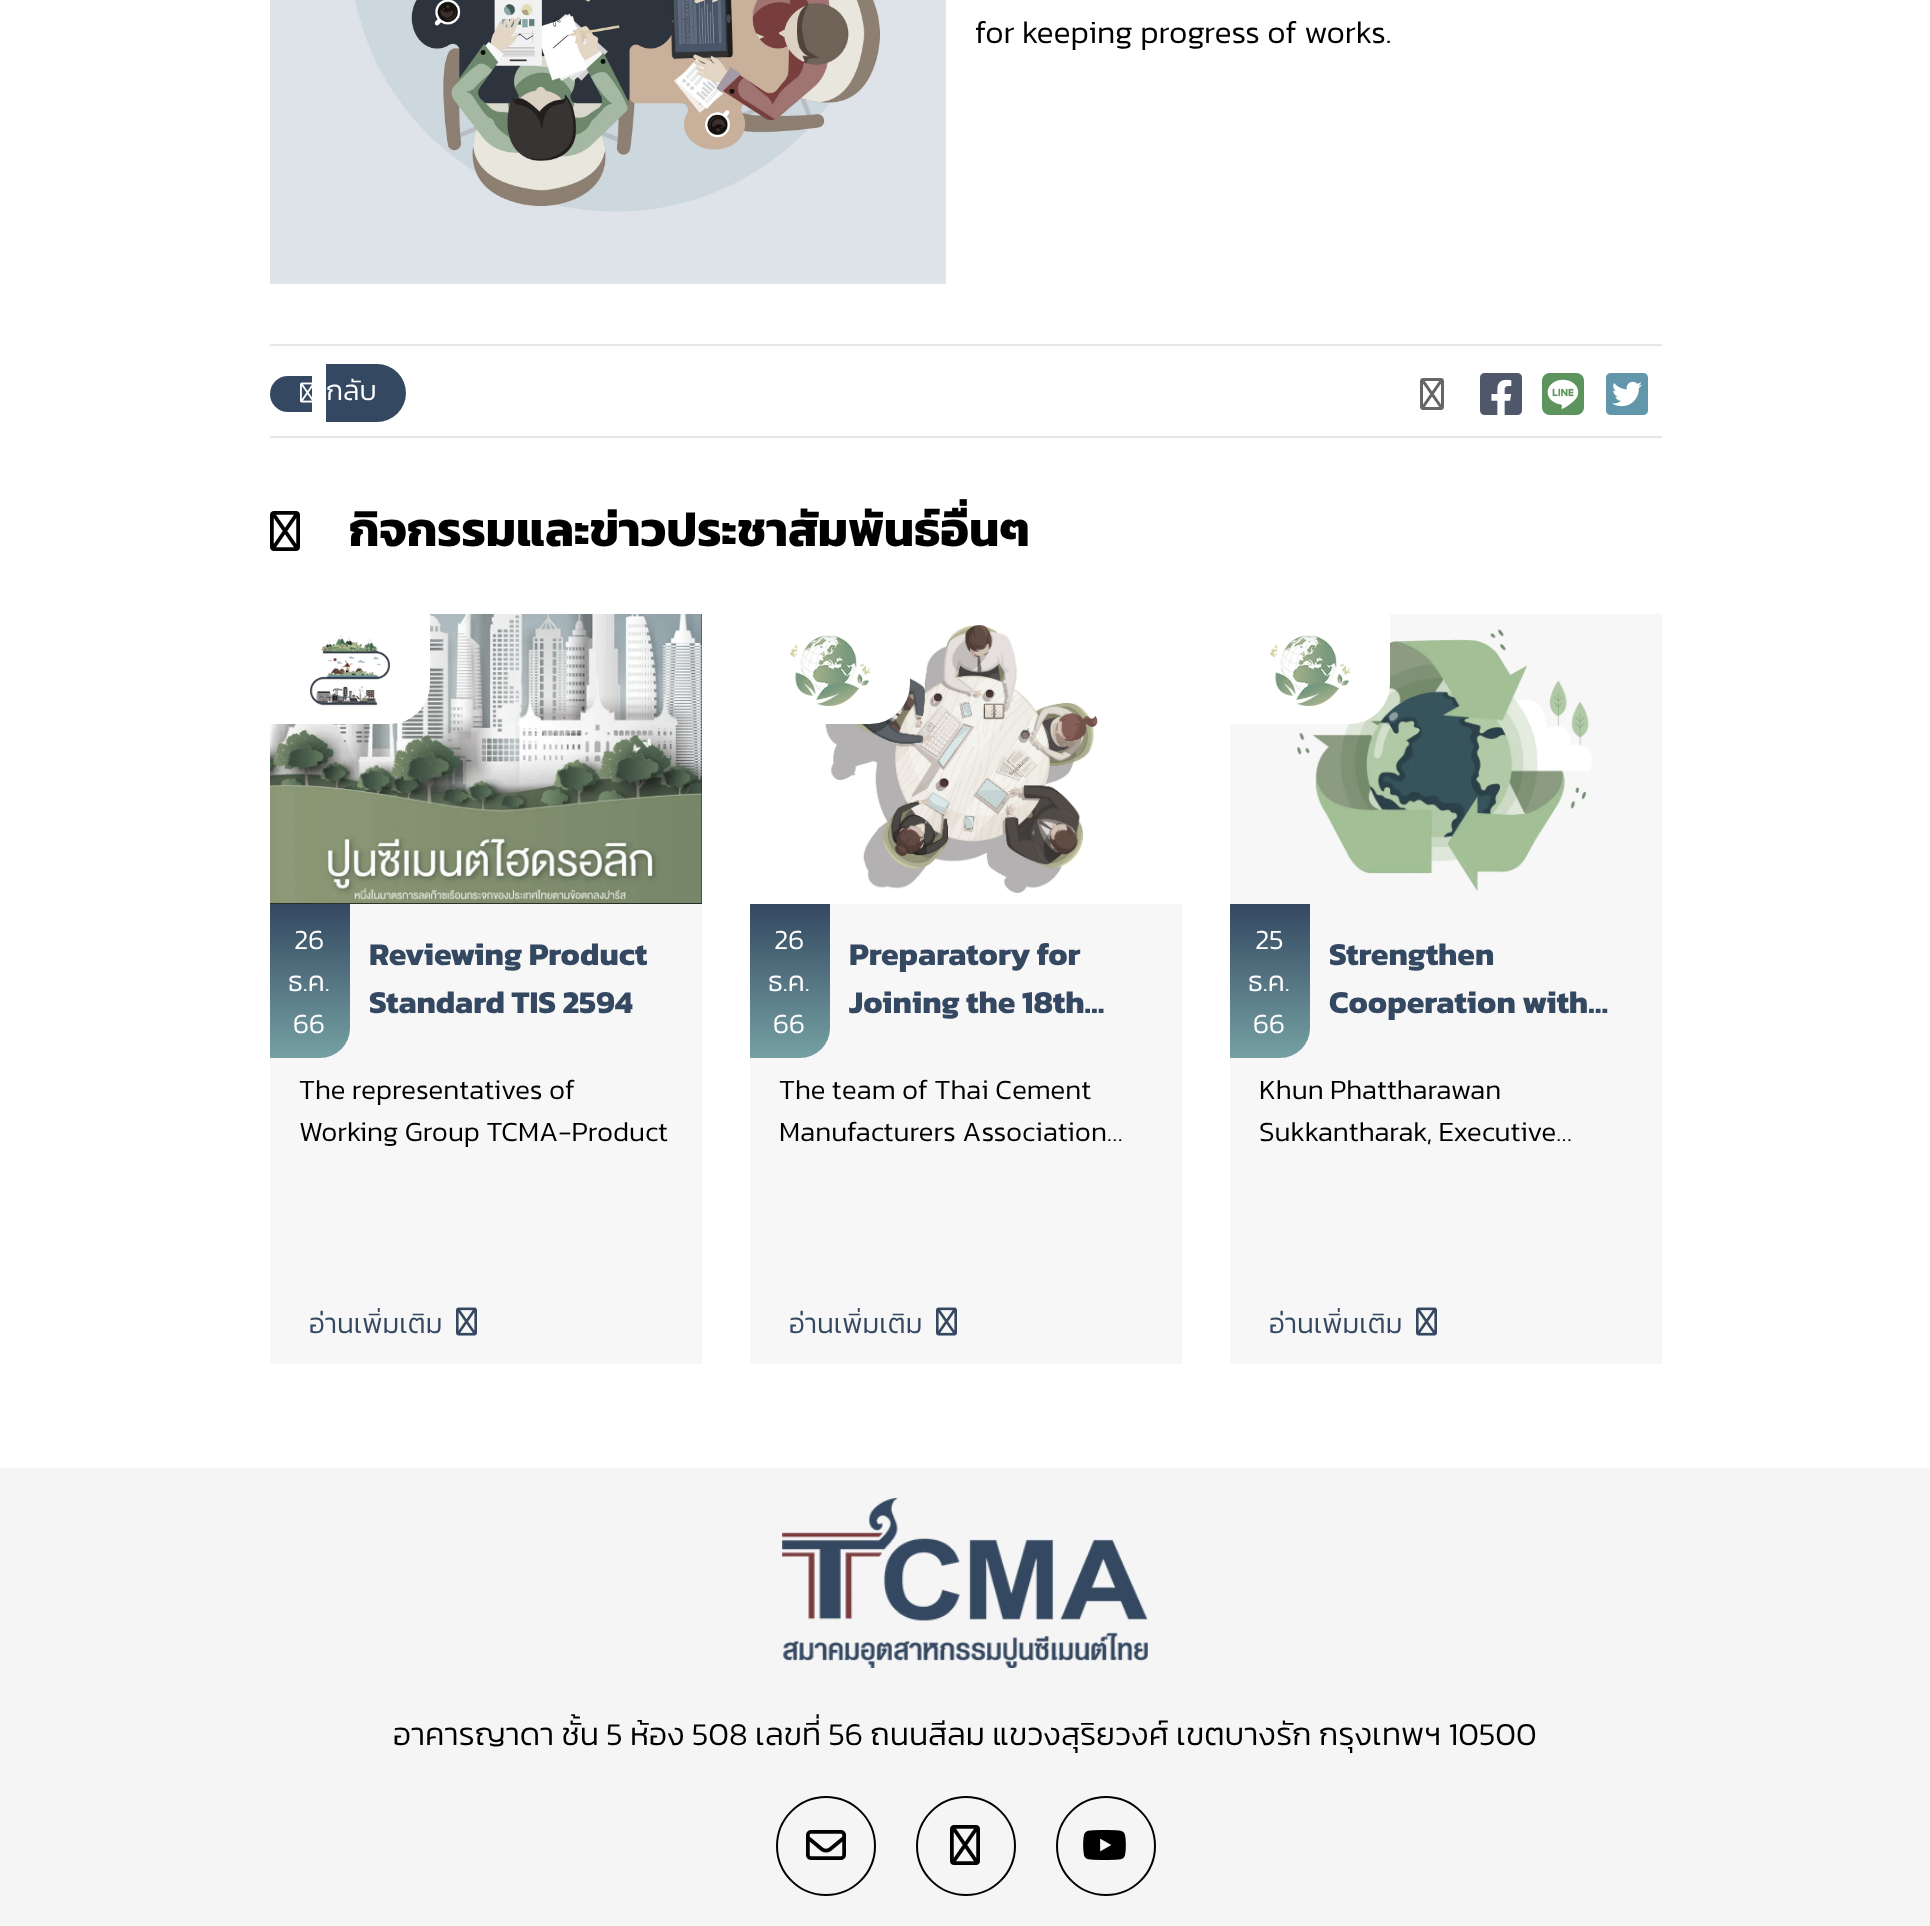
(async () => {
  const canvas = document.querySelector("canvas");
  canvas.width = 1930;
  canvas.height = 1926;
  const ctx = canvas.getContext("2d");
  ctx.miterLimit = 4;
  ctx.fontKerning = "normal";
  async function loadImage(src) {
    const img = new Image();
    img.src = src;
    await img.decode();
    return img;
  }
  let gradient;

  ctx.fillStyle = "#ffffff";
  ctx.fillRect(0, 0, 1930, 1926);
  ctx.drawImage(await loadImage("img/1.png"), 270, 0, 676, 284);
  ctx.fillStyle = "#e7e7e7";
  ctx.fillRect(270, 344, 1392, 2);
  ctx.fillRect(270, 436, 1392, 2);
  ctx.fillStyle = "#344861";
  ctx.beginPath();
  ctx.roundRect(270, 376, 42, 36, [18, 0, 0, 18]);
  ctx.fill();
  ctx.beginPath();
  ctx.roundRect(326, 364, 80, 58, [0, 29, 29, 0]);
  ctx.fill();
  ctx.drawImage(await loadImage("img/2.png"), 300, 382, 12, 21);
  ctx.drawImage(await loadImage("img/3.png"), 1420, 378, 24, 32);
  ctx.drawImage(await loadImage("img/4.png"), 1480, 373, 42, 42);
  ctx.drawImage(await loadImage("img/5.png"), 1542, 373, 42, 42);
  ctx.drawImage(await loadImage("img/6.png"), 1606, 373, 42, 42);
  ctx.drawImage(await loadImage("img/7.png"), 270, 511, 30, 40);
  ctx.fillStyle = "#f7f7f7";
  ctx.fillRect(270, 904, 432, 460);
  ctx.drawImage(await loadImage("img/8.png"), 270, 614, 432, 290);
  ctx.fillStyle = "#ffffff";
  ctx.beginPath();
  ctx.roundRect(270, 614, 160, 110, [0, 0, 40, 0]);
  ctx.fill();
  ctx.drawImage(await loadImage("img/9.png"), 310, 635, 80, 71);
  gradient = ctx.createLinearGradient(310, 904, 310, 1058);
  gradient.addColorStop(0, "#344861");
  gradient.addColorStop(1, "#75a1a3");
  ctx.fillStyle = gradient;
  ctx.beginPath();
  ctx.roundRect(270, 904, 80, 154, [0, 0, 30, 0]);
  ctx.fill();
  ctx.drawImage(await loadImage("img/10.png"), 456, 1307, 21, 29);
  ctx.fillStyle = "#f7f7f7";
  ctx.fillRect(750, 904, 432, 460);
  ctx.drawImage(await loadImage("img/11.png"), 750, 614, 432, 290);
  ctx.fillStyle = "#ffffff";
  ctx.beginPath();
  ctx.roundRect(750, 614, 160, 110, [0, 0, 40, 0]);
  ctx.fill();
  ctx.drawImage(await loadImage("img/12.png"), 790, 635, 80, 71);
  gradient = ctx.createLinearGradient(790, 904, 790, 1058);
  gradient.addColorStop(0, "#344861");
  gradient.addColorStop(1, "#75a1a3");
  ctx.fillStyle = gradient;
  ctx.beginPath();
  ctx.roundRect(750, 904, 80, 154, [0, 0, 30, 0]);
  ctx.fill();
  ctx.drawImage(await loadImage("img/10.png"), 936, 1307, 21, 29);
  ctx.fillStyle = "#f7f7f7";
  ctx.fillRect(1230, 614, 432, 750);
  ctx.drawImage(await loadImage("img/13.png"), 1296, 629, 296, 263);
  ctx.fillStyle = "#ffffff";
  ctx.beginPath();
  ctx.roundRect(1230, 614, 160, 110, [0, 0, 40, 0]);
  ctx.fill();
  ctx.drawImage(await loadImage("img/12.png"), 1270, 635, 80, 71);
  gradient = ctx.createLinearGradient(1270, 904, 1270, 1058);
  gradient.addColorStop(0, "#344861");
  gradient.addColorStop(1, "#75a1a3");
  ctx.fillStyle = gradient;
  ctx.beginPath();
  ctx.roundRect(1230, 904, 80, 154, [0, 0, 30, 0]);
  ctx.fill();
  ctx.drawImage(await loadImage("img/10.png"), 1416, 1307, 21, 29);
  ctx.fillStyle = "#f5f5f5";
  ctx.fillRect(0, 1468, 1930, 458);
  ctx.drawImage(await loadImage("img/14.png"), 782, 1498, 366, 170);
  ctx.beginPath();
  ctx.arc(826, 1846, 49, 0, Math.PI * 2);
  ctx.strokeStyle = "#000000";
  ctx.lineWidth = 2;
  ctx.stroke();
  ctx.drawImage(await loadImage("img/15.png"), 806, 1830, 40, 30);
  ctx.beginPath();
  ctx.arc(966, 1846, 49, 0, Math.PI * 2);
  ctx.stroke();
  ctx.drawImage(await loadImage("img/16.png"), 950, 1825, 30, 40);
  ctx.beginPath();
  ctx.arc(1106, 1846, 49, 0, Math.PI * 2);
  ctx.stroke();
  ctx.drawImage(await loadImage("img/17.png"), 1083, 1830, 43, 30);
  ctx.font = "300 32px Kanit";
  ctx.fillStyle = "#000000";
  ctx.fillText("for keeping progress of works.", 975, 43);
  ctx.font = "300 28px Kanit";
  ctx.fillStyle = "#ffffff";
  ctx.fillText("กลับ", 326, 400);
  ctx.font = "bold 48px Kanit";
  ctx.fillStyle = "#000000";
  ctx.fillText("กิจกรรมและข่าวประชาสัมพันธ์อื่นๆ", 349, 546);
  ctx.font = "300 28px Kanit";
  ctx.fillStyle = "#ffffff";
  for (const [text, x, y] of [
    ["26", 294, 949],
    ["ธ.ค.", 288, 991],
    ["66", 293, 1033],
  ]) {
    ctx.fillText(text, x, y);
  }
  ctx.font = "bold 32px Kanit";
  ctx.fillStyle = "#344861";
  ctx.fillText("Reviewing Product", 369, 965);
  ctx.fillText("Standard TIS 2594", 369, 1013);
  ctx.font = "300 28px Kanit";
  ctx.fillStyle = "#000000";
  ctx.fillText("The representatives of", 299, 1099);
  ctx.fillText("Working Group TCMA-Product", 299, 1141);
  ctx.fillStyle = "#344861";
  ctx.fillText("อ่านเพิ่มเติม", 309, 1333);
  ctx.fillStyle = "#ffffff";
  for (const [text, x, y] of [
    ["26", 774, 949],
    ["ธ.ค.", 768, 991],
    ["66", 773, 1033],
  ]) {
    ctx.fillText(text, x, y);
  }
  ctx.font = "bold 32px Kanit";
  ctx.fillStyle = "#344861";
  ctx.fillText("Preparatory for", 849, 965);
  ctx.fillText("Joining the 18th…", 849, 1013);
  ctx.font = "300 28px Kanit";
  ctx.fillStyle = "#000000";
  ctx.fillText("The team of Thai Cement", 779, 1099);
  ctx.fillText("Manufacturers Association…", 779, 1141);
  ctx.fillStyle = "#344861";
  ctx.fillText("อ่านเพิ่มเติม", 789, 1333);
  ctx.fillStyle = "#ffffff";
  for (const [text, x, y] of [
    ["25", 1255, 949],
    ["ธ.ค.", 1248, 991],
    ["66", 1253, 1033],
  ]) {
    ctx.fillText(text, x, y);
  }
  ctx.font = "bold 32px Kanit";
  ctx.fillStyle = "#344861";
  ctx.fillText("Strengthen", 1329, 965);
  ctx.fillText("Cooperation with…", 1329, 1013);
  ctx.font = "300 28px Kanit";
  ctx.fillStyle = "#000000";
  ctx.fillText("Khun Phattharawan", 1259, 1099);
  ctx.fillText("Sukkantharak, Executive…", 1259, 1141);
  ctx.fillStyle = "#344861";
  ctx.fillText("อ่านเพิ่มเติม", 1269, 1333);
  ctx.font = "300 32px Kanit";
  ctx.fillStyle = "#000000";
  ctx.fillText("อาคารญาดา ชั้น 5 ห้อง 508 เลขที่ 56 ถนนสีลม แขวงสุริยวงศ์ เขตบางรัก กรุงเทพฯ 10500", 393, 1745);
})();
